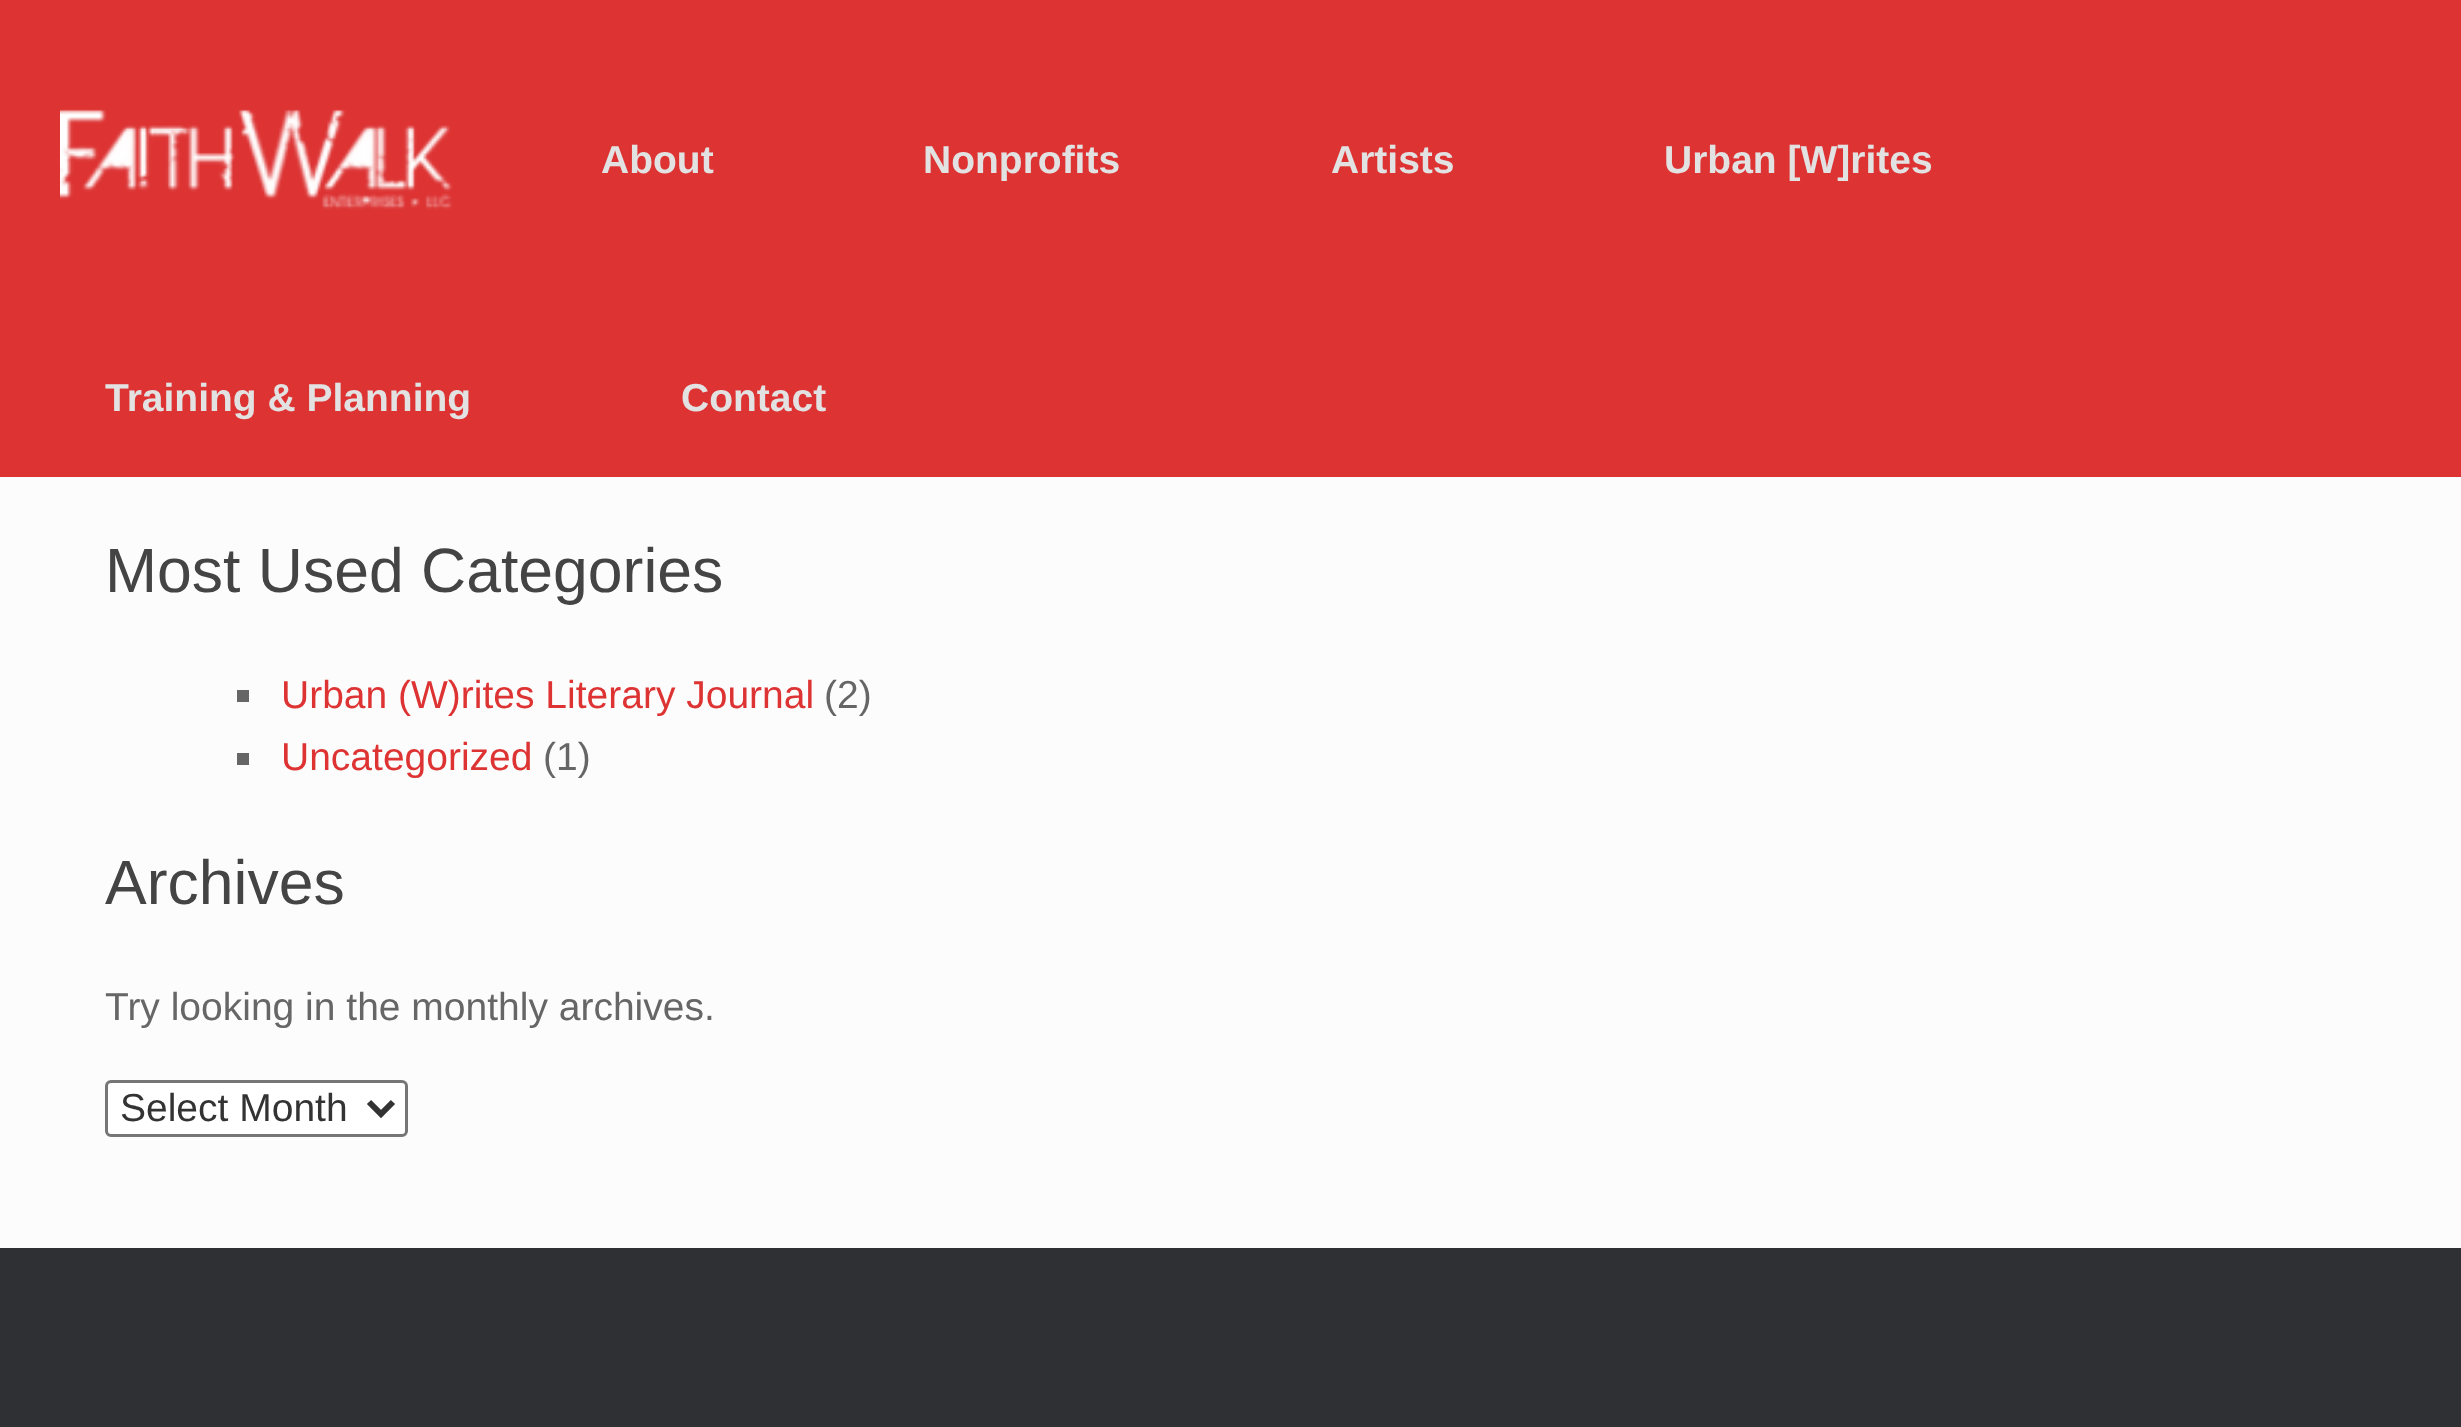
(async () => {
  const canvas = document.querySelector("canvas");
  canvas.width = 2461;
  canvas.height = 1427;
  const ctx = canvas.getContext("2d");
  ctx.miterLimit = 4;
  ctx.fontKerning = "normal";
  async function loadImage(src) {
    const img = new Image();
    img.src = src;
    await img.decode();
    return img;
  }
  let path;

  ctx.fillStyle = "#2f3033";
  ctx.fillRect(0, 0, 2461, 1427);
  ctx.fillStyle = "#dd3333";
  ctx.fillRect(0, 0, 2461, 477);
  ctx.drawImage(await loadImage("img/1.png"), 60, 109, 393, 101);
  for (const [x, y, w, h, color] of [
    [0, 477, 2461, 771, "#fcfcfc"],
    [237, 690, 12, 12, "#666666"],
    [237, 753, 12, 12, "#666666"],
  ]) {
    ctx.fillStyle = color;
    ctx.fillRect(x, y, w, h);
  }
  ctx.fillStyle = "#ffffff";
  ctx.beginPath();
  ctx.roundRect(106.5, 1081.5, 300, 54, 4.5);
  ctx.fill();
  ctx.strokeStyle = "#767676";
  ctx.lineWidth = 3;
  ctx.stroke();
  path = new Path2D("M369 1102L381 1114L393 1102");
  ctx.strokeStyle = "#333333";
  ctx.lineWidth = 6;
  ctx.stroke(path);
  ctx.font = "bold 39px Liberation Sans";
  ctx.fillStyle = "#e2e2e2";
  for (const [text, x, y] of [
    ["About", 601, 173],
    ["Nonprofits", 923, 173],
    ["Artists", 1331, 173],
    ["Urban [W]rites", 1664, 173],
    ["Training & Planning", 105, 411],
    ["Contact", 681, 411],
  ]) {
    ctx.fillText(text, x, y);
  }
  ctx.font = "62.5px Liberation Sans";
  ctx.fillStyle = "#444444";
  ctx.fillText("Most Used Categories", 105, 592);
  ctx.font = "39px Liberation Sans";
  ctx.fillStyle = "#dd3333";
  ctx.fillText("Urban (W)rites Literary Journal", 281, 708);
  ctx.fillStyle = "#666666";
  ctx.fillText("(2)", 824, 708);
  ctx.fillStyle = "#dd3333";
  ctx.fillText("Uncategorized", 281, 770);
  ctx.fillStyle = "#666666";
  ctx.fillText("(1)", 543, 770);
  ctx.font = "62.5px Liberation Sans";
  ctx.fillStyle = "#444444";
  ctx.fillText("Archives", 105, 904);
  ctx.font = "39px Liberation Sans";
  ctx.fillStyle = "#666666";
  ctx.fillText("Try looking in the monthly archives.", 105, 1020);
  ctx.fillStyle = "#333333";
  ctx.fillText("Select Month", 120, 1121);
})();
